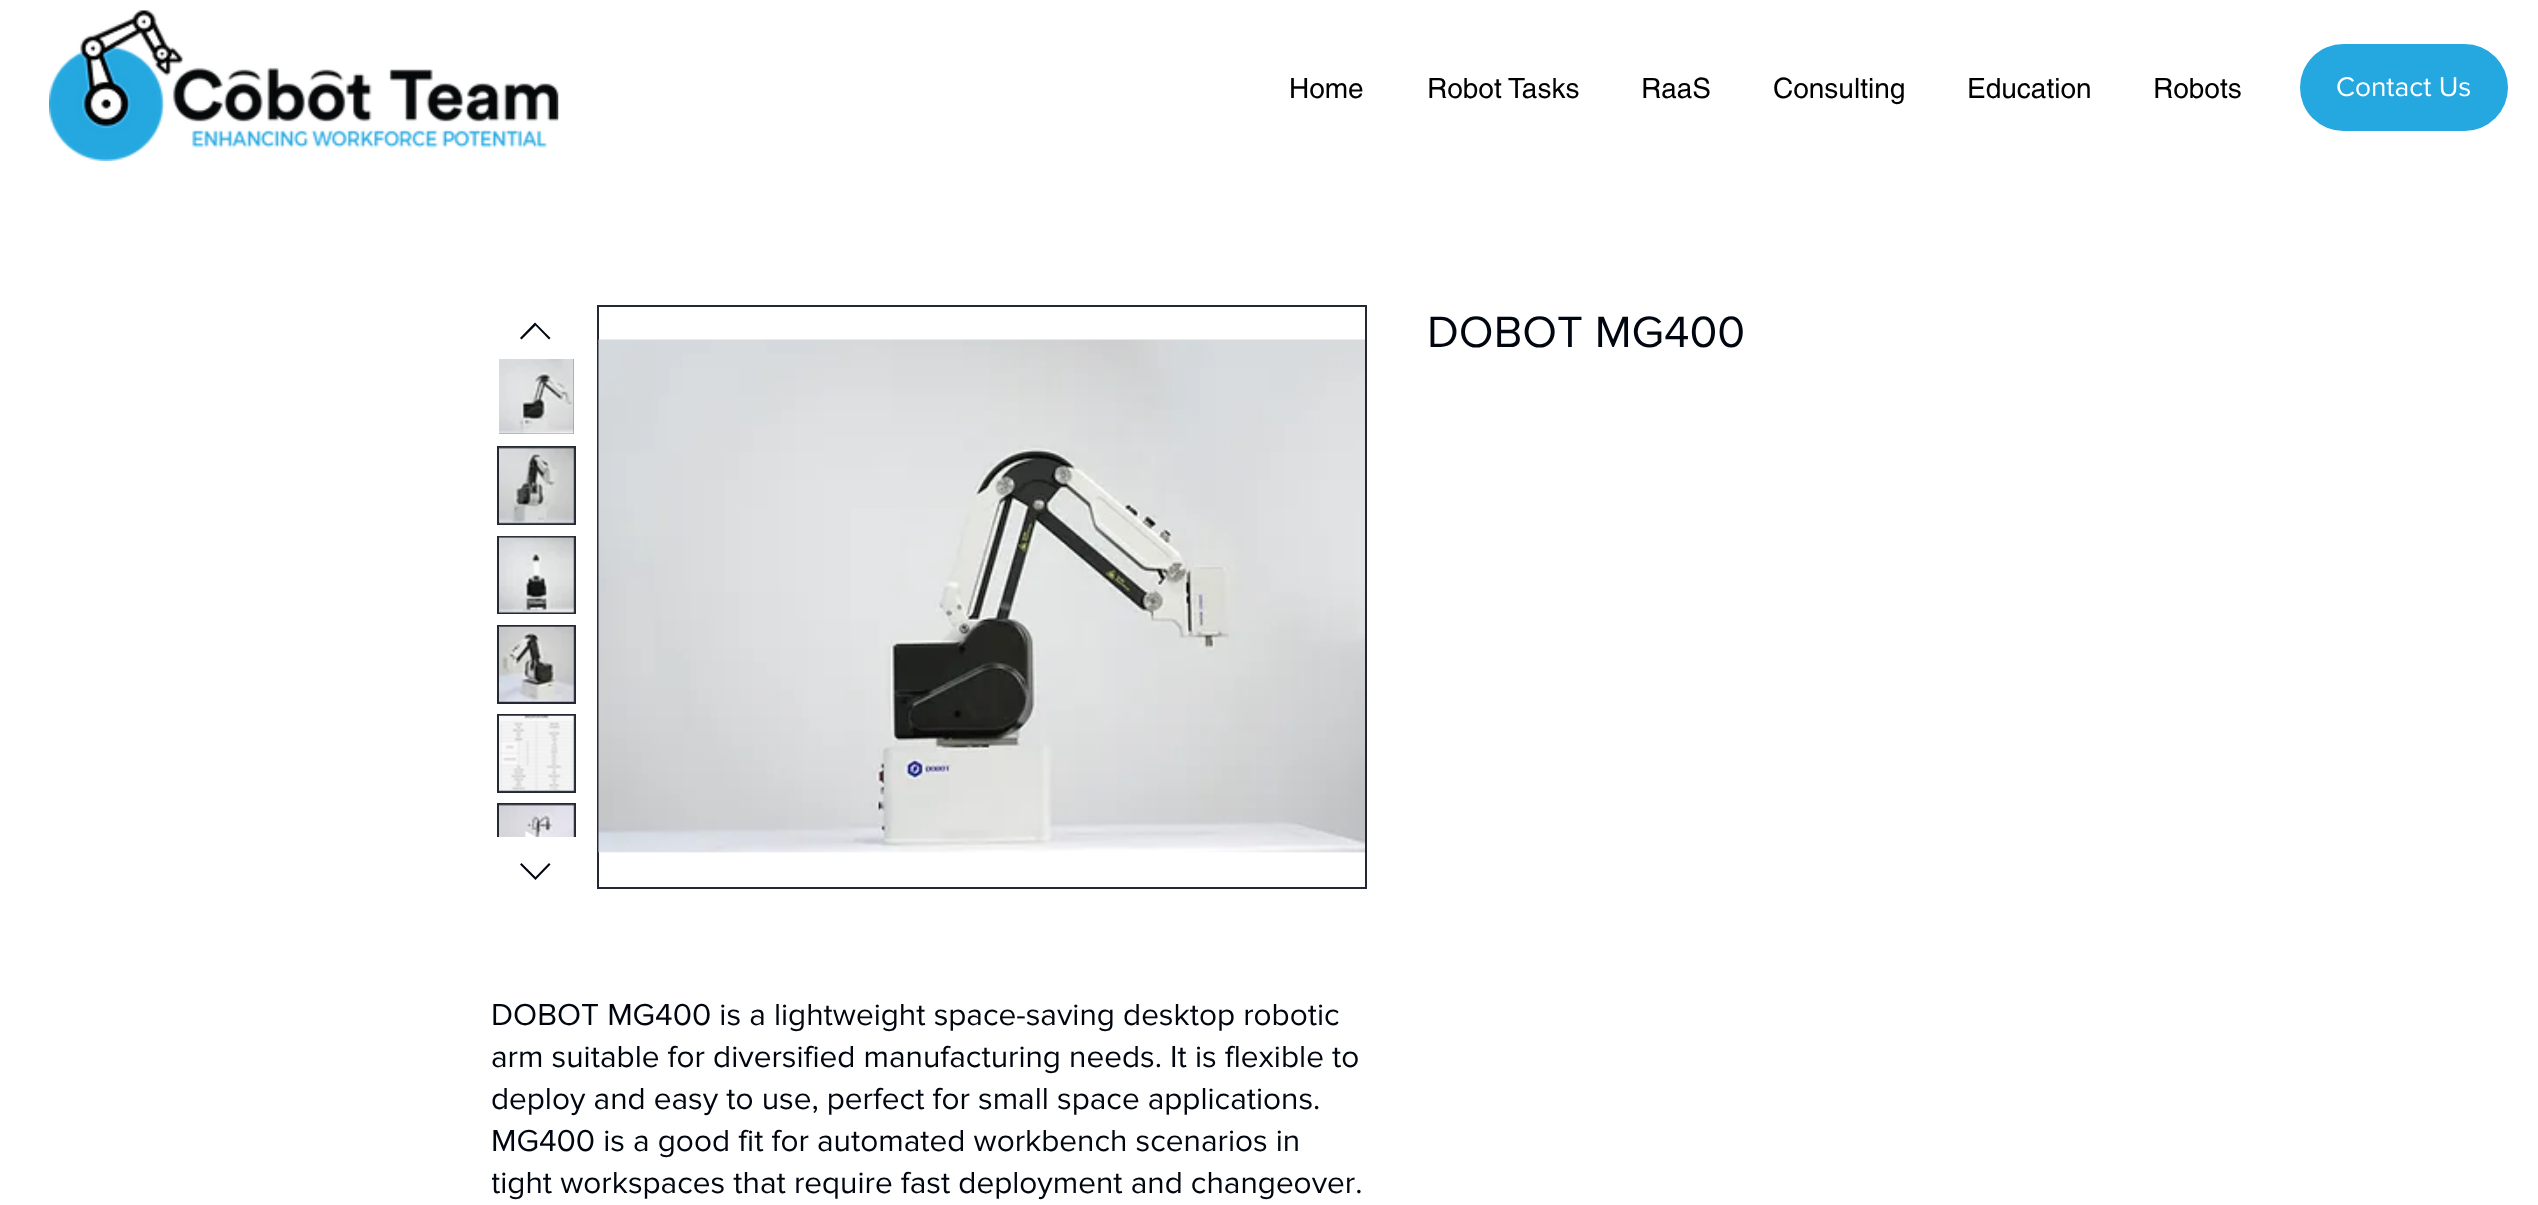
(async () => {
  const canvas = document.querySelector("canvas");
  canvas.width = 2538;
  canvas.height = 1205;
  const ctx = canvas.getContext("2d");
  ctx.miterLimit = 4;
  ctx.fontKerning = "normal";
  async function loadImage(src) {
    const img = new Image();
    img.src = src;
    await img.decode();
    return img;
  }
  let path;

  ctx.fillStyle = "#ffffff";
  ctx.fillRect(0, 0, 2538, 1205);
  ctx.drawImage(await loadImage("img/1.png"), 49, 10, 510, 151);
  ctx.fillStyle = "#25a8e0";
  ctx.beginPath();
  ctx.roundRect(2300, 44, 208, 87, 43.5);
  ctx.fill();
  ctx.fillStyle = "#00060f";
  path = new Path2D("M535 322.5L550.5 338L549 339.5L535.5 325.5L521.5 339.5L520 338Z");
  ctx.fill(path, "evenodd");
  ctx.fillStyle = "#242834";
  ctx.fillRect(499, 359, 75, 75);
  ctx.drawImage(await loadImage("img/2.png"), 499, 359, 75, 75);
  ctx.fillRect(497, 446, 79, 79);
  ctx.drawImage(await loadImage("img/3.png"), 499, 447, 76, 77);
  ctx.fillRect(497, 536, 79, 78);
  ctx.drawImage(await loadImage("img/4.png"), 499, 536, 76, 77);
  ctx.fillRect(497, 625, 79, 79);
  ctx.drawImage(await loadImage("img/5.png"), 499, 626, 76, 76);
  ctx.fillRect(497, 714, 79, 79);
  ctx.drawImage(await loadImage("img/6.png"), 499, 715, 76, 77);
  ctx.fillRect(497, 803, 79, 34);
  ctx.drawImage(await loadImage("img/7.png"), 499, 804, 76, 33);
  ctx.save();
  ctx.beginPath();
  ctx.rect(523, 831, 23, 6);
  ctx.clip();
  ctx.fillStyle = "#ffffff";
  path = new Path2D("M525.5 831V854.5L545.5 842.5Z");
  ctx.fill(path);
  ctx.restore();
  ctx.fillStyle = "#00060f";
  path = new Path2D("M549 863L550.5 864.5L535.5 880L520 864.5L521.5 863L535.5 877Z");
  ctx.fill(path, "evenodd");
  ctx.strokeStyle = "#242834";
  ctx.lineWidth = 2;
  ctx.strokeRect(598, 306, 768, 582);
  ctx.drawImage(await loadImage("img/8.png"), 598, 339, 767, 514);
  ctx.font = "28px helvetica";
  ctx.fillStyle = "#000000";
  for (const [text, x, y] of [
    ["Home", 1289, 98],
    ["Robot Tasks", 1427, 98],
    ["RaaS", 1641, 98],
    ["Consulting", 1773, 98],
    ["Education", 1967, 98],
    ["Robots", 2153, 98],
  ]) {
    ctx.fillText(text, x, y);
  }
  ctx.font = "28px 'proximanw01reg'";
  ctx.fillStyle = "#ffffff";
  ctx.fillText("Contact Us", 2336, 96);
  ctx.font = "45.5px 'proximanw01reg'";
  ctx.fillStyle = "#00060f";
  ctx.fillText("DOBOT MG400", 1427, 347);
  ctx.font = "31.5px 'proximanw01reg'";
  for (const [text, x, y] of [
    ["DOBOT MG400 is a lightweight space-saving desktop robotic", 491, 1025],
    ["arm suitable for diversified manufacturing needs. It is flexible to", 491, 1067],
    ["deploy and easy to use, perfect for small space applications.", 491, 1109],
    ["MG400 is a good fit for automated workbench scenarios in", 491, 1151],
  ]) {
    ctx.fillText(text, x, y);
  }
  ctx.save();
  ctx.beginPath();
  ctx.rect(492, 994, 875, 210);
  ctx.clip();
  ctx.fillText("tight workspaces that require fast deployment and changeover.", 491, 1193);
  ctx.restore();
})();
